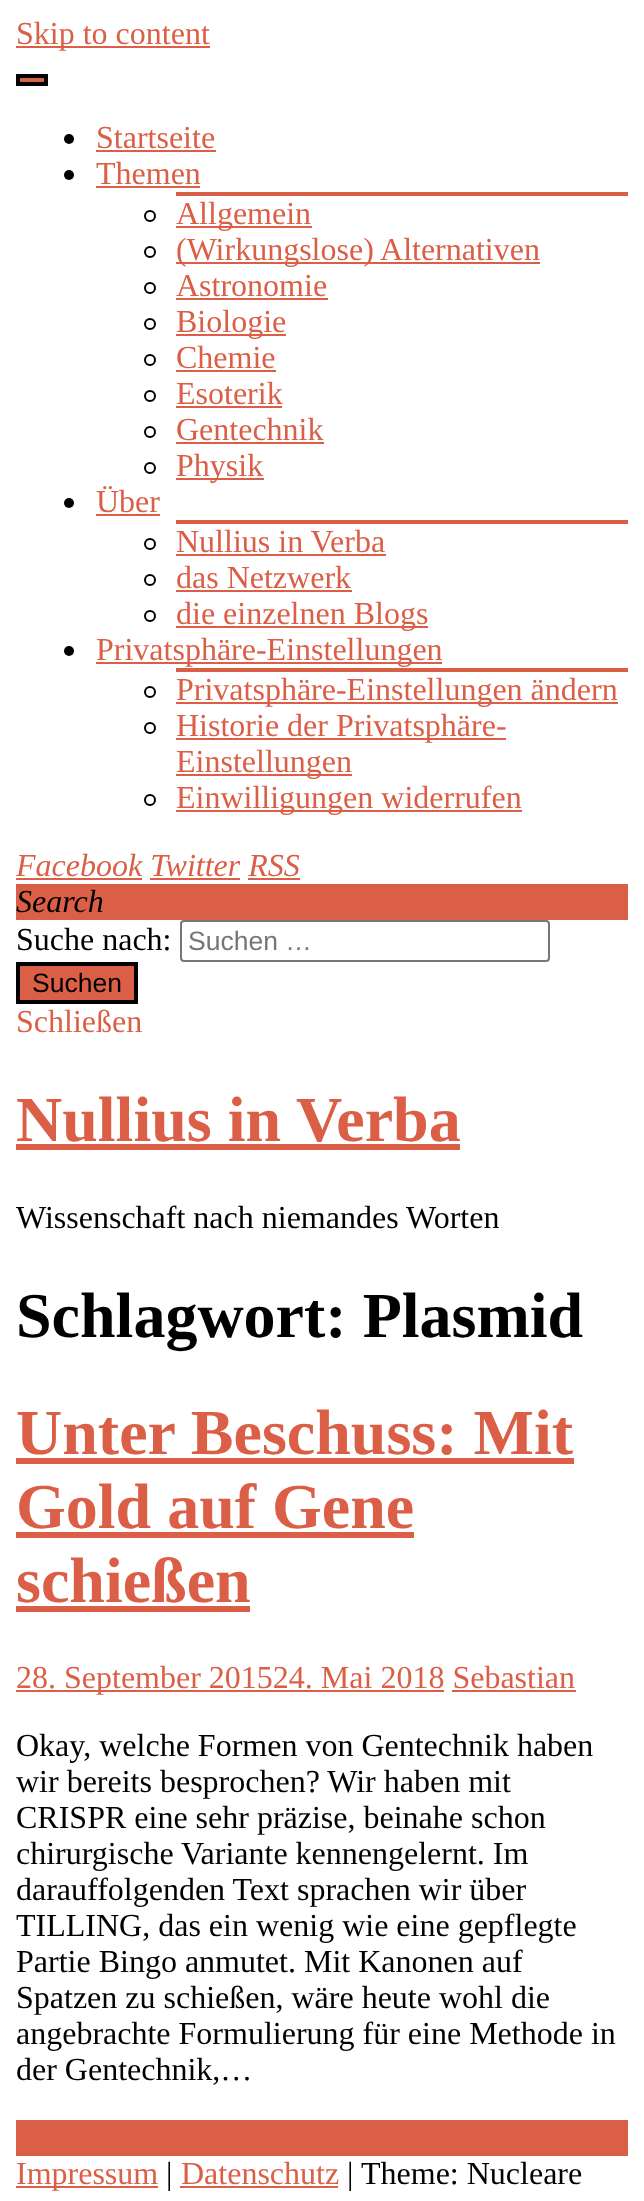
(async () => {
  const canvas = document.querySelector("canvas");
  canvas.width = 644;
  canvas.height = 2201;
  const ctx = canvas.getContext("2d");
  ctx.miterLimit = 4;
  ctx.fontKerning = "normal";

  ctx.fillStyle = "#ffffff";
  ctx.fillRect(0, 0, 644, 2201);
  ctx.fillStyle = "#db5f46";
  ctx.fillRect(16, 46, 194, 2);
  ctx.beginPath();
  ctx.rect(18, 76, 28, 8);
  ctx.fill();
  ctx.strokeStyle = "#000000";
  ctx.lineWidth = 4;
  ctx.stroke();
  ctx.fillStyle = "#000000";
  ctx.beginPath();
  ctx.arc(69, 139, 5, 0, Math.PI * 2);
  ctx.fill();
  ctx.fillStyle = "#db5f46";
  ctx.fillRect(96, 150, 120, 2);
  ctx.fillStyle = "#000000";
  ctx.beginPath();
  ctx.arc(69, 175, 5, 0, Math.PI * 2);
  ctx.fill();
  ctx.fillStyle = "#db5f46";
  ctx.fillRect(96, 186, 104, 2);
  ctx.fillRect(176, 192, 452, 4);
  ctx.beginPath();
  ctx.arc(150, 216, 5, 0, Math.PI * 2);
  ctx.lineWidth = 2;
  ctx.stroke();
  ctx.fillRect(176, 226, 136, 2);
  ctx.beginPath();
  ctx.arc(150, 252, 5, 0, Math.PI * 2);
  ctx.stroke();
  ctx.fillRect(176, 262, 364, 2);
  ctx.beginPath();
  ctx.arc(150, 288, 5, 0, Math.PI * 2);
  ctx.stroke();
  ctx.fillRect(176, 298, 152, 2);
  ctx.beginPath();
  ctx.arc(150, 324, 5, 0, Math.PI * 2);
  ctx.stroke();
  ctx.fillRect(176, 334, 110, 2);
  ctx.beginPath();
  ctx.arc(150, 360, 5, 0, Math.PI * 2);
  ctx.stroke();
  ctx.fillRect(176, 370, 100, 2);
  ctx.beginPath();
  ctx.arc(150, 396, 5, 0, Math.PI * 2);
  ctx.stroke();
  ctx.fillRect(176, 406, 106, 2);
  ctx.beginPath();
  ctx.arc(150, 432, 5, 0, Math.PI * 2);
  ctx.stroke();
  ctx.fillRect(176, 442, 148, 2);
  ctx.beginPath();
  ctx.arc(150, 468, 5, 0, Math.PI * 2);
  ctx.stroke();
  ctx.fillRect(176, 478, 88, 2);
  ctx.fillStyle = "#000000";
  ctx.beginPath();
  ctx.arc(69, 503, 5, 0, Math.PI * 2);
  ctx.fill();
  ctx.fillStyle = "#db5f46";
  ctx.fillRect(96, 514, 64, 2);
  ctx.fillRect(176, 520, 452, 4);
  ctx.beginPath();
  ctx.arc(150, 544, 5, 0, Math.PI * 2);
  ctx.stroke();
  ctx.fillRect(176, 554, 210, 2);
  ctx.beginPath();
  ctx.arc(150, 580, 5, 0, Math.PI * 2);
  ctx.stroke();
  ctx.fillRect(176, 590, 176, 2);
  ctx.beginPath();
  ctx.arc(150, 616, 5, 0, Math.PI * 2);
  ctx.stroke();
  ctx.fillRect(176, 626, 252, 2);
  ctx.fillStyle = "#000000";
  ctx.beginPath();
  ctx.arc(69, 651, 5, 0, Math.PI * 2);
  ctx.fill();
  ctx.fillStyle = "#db5f46";
  ctx.fillRect(96, 662, 346, 2);
  ctx.fillRect(176, 668, 452, 4);
  ctx.beginPath();
  ctx.arc(150, 692, 5, 0, Math.PI * 2);
  ctx.stroke();
  ctx.fillRect(176, 702, 442, 2);
  ctx.beginPath();
  ctx.arc(150, 728, 5, 0, Math.PI * 2);
  ctx.stroke();
  ctx.fillRect(176, 738, 330, 2);
  ctx.fillRect(176, 774, 176, 2);
  ctx.beginPath();
  ctx.arc(150, 800, 5, 0, Math.PI * 2);
  ctx.stroke();
  for (const [x, y, w, h, color] of [
    [176, 810, 346, 2, "#db5f46"],
    [16, 878, 126, 2, "#db5f46"],
    [150, 878, 90, 2, "#db5f46"],
    [248, 878, 52, 2, "#db5f46"],
    [16, 884, 612, 36, "#db5f46"],
  ]) {
    ctx.fillStyle = color;
    ctx.fillRect(x, y, w, h);
  }
  ctx.beginPath();
  ctx.roundRect(181, 921, 368, 40, 3);
  ctx.strokeStyle = "#767676";
  ctx.stroke();
  ctx.beginPath();
  ctx.rect(18, 964, 118, 38);
  ctx.fill();
  ctx.strokeStyle = "#000000";
  ctx.lineWidth = 4;
  ctx.stroke();
  for (const [x, y, w, h, color] of [
    [16, 1144, 444, 6, "#db5f46"],
    [16, 1458, 558, 6, "#db5f46"],
    [16, 1532, 398, 6, "#db5f46"],
    [16, 1606, 234, 6, "#db5f46"],
    [16, 1690, 428, 2, "#db5f46"],
    [452, 1690, 124, 2, "#db5f46"],
    [16, 2120, 612, 36, "#db5f46"],
    [16, 2186, 142, 2, "#db5f46"],
    [180, 2186, 158, 2, "#db5f46"],
  ]) {
    ctx.fillStyle = color;
    ctx.fillRect(x, y, w, h);
  }
  ctx.font = "32px Liberation Serif";
  for (const [text, x, y] of [
    ["Skip to content", 16, 44],
    ["Startseite", 96, 148],
    ["Themen", 96, 184],
    ["Allgemein", 176, 224],
    ["(Wirkungslose) Alternativen", 176, 260],
    ["Astronomie", 176, 296],
    ["Biologie", 176, 332],
    ["Chemie", 176, 368],
    ["Esoterik", 176, 404],
    ["Gentechnik", 176, 440],
    ["Physik", 176, 476],
    ["Über", 96, 512],
    ["Nullius in Verba", 176, 552],
    ["das Netzwerk", 176, 588],
    ["die einzelnen Blogs", 176, 624],
    ["Privatsphäre-Einstellungen", 96, 660],
    ["Privatsphäre-Einstellungen ändern", 176, 700],
    ["Historie der Privatsphäre-", 176, 736],
    ["Einstellungen", 176, 772],
    ["Einwilligungen widerrufen", 176, 808],
  ]) {
    ctx.fillText(text, x, y);
  }
  ctx.font = "italic 32px Liberation Serif";
  ctx.fillText("Facebook Twitter RSS", 16, 876);
  ctx.fillStyle = "#000000";
  ctx.fillText("Search", 16, 912);
  ctx.font = "32px Liberation Serif";
  ctx.fillText("Suche nach:", 16, 950);
  ctx.font = "26.5px Liberation Sans";
  ctx.fillStyle = "#757575";
  ctx.fillText("Suchen …", 188, 950);
  ctx.fillStyle = "#000000";
  ctx.fillText("Suchen", 32, 992);
  ctx.font = "32px Liberation Serif";
  ctx.fillStyle = "#db5f46";
  ctx.fillText("Schließen", 16, 1032);
  ctx.font = "bold 64px Liberation Serif";
  ctx.fillText("Nullius in Verba", 16, 1141);
  ctx.font = "32px Liberation Serif";
  ctx.fillStyle = "#000000";
  ctx.fillText("Wissenschaft nach niemandes Worten", 16, 1228);
  ctx.font = "bold 64px Liberation Serif";
  ctx.fillText("Schlagwort: Plasmid", 16, 1337);
  ctx.fillStyle = "#db5f46";
  for (const [text, x, y] of [
    ["Unter Beschuss: Mit", 16, 1454],
    ["Gold auf Gene", 16, 1528],
    ["schießen", 16, 1602],
  ]) {
    ctx.fillText(text, x, y);
  }
  ctx.font = "32px Liberation Serif";
  ctx.fillText("28. September 201524. Mai 2018 Sebastian", 16, 1688);
  ctx.fillStyle = "#000000";
  for (const [text, x, y] of [
    ["Okay, welche Formen von Gentechnik haben", 16, 1756],
    ["wir bereits besprochen? Wir haben mit", 16, 1792],
    ["CRISPR eine sehr präzise, beinahe schon", 16, 1828],
    ["chirurgische Variante kennengelernt. Im", 16, 1864],
    ["darauffolgenden Text sprachen wir über", 16, 1900],
    ["TILLING, das ein wenig wie eine gepflegte", 16, 1936],
    ["Partie Bingo anmutet. Mit Kanonen auf", 16, 1972],
    ["Spatzen zu schießen, wäre heute wohl die", 16, 2008],
    ["angebrachte Formulierung für eine Methode in", 16, 2044],
    ["der Gentechnik,…", 16, 2080],
  ]) {
    ctx.fillText(text, x, y);
  }
  ctx.fillStyle = "#db5f46";
  ctx.fillText("Impressum", 16, 2184);
  ctx.fillStyle = "#000000";
  ctx.fillText("|", 166, 2184);
  ctx.fillStyle = "#db5f46";
  ctx.fillText("Datenschutz", 181, 2184);
  ctx.fillStyle = "#000000";
  ctx.fillText("|", 347, 2184);
  ctx.fillText("Theme: Nucleare", 361, 2184);
})();
